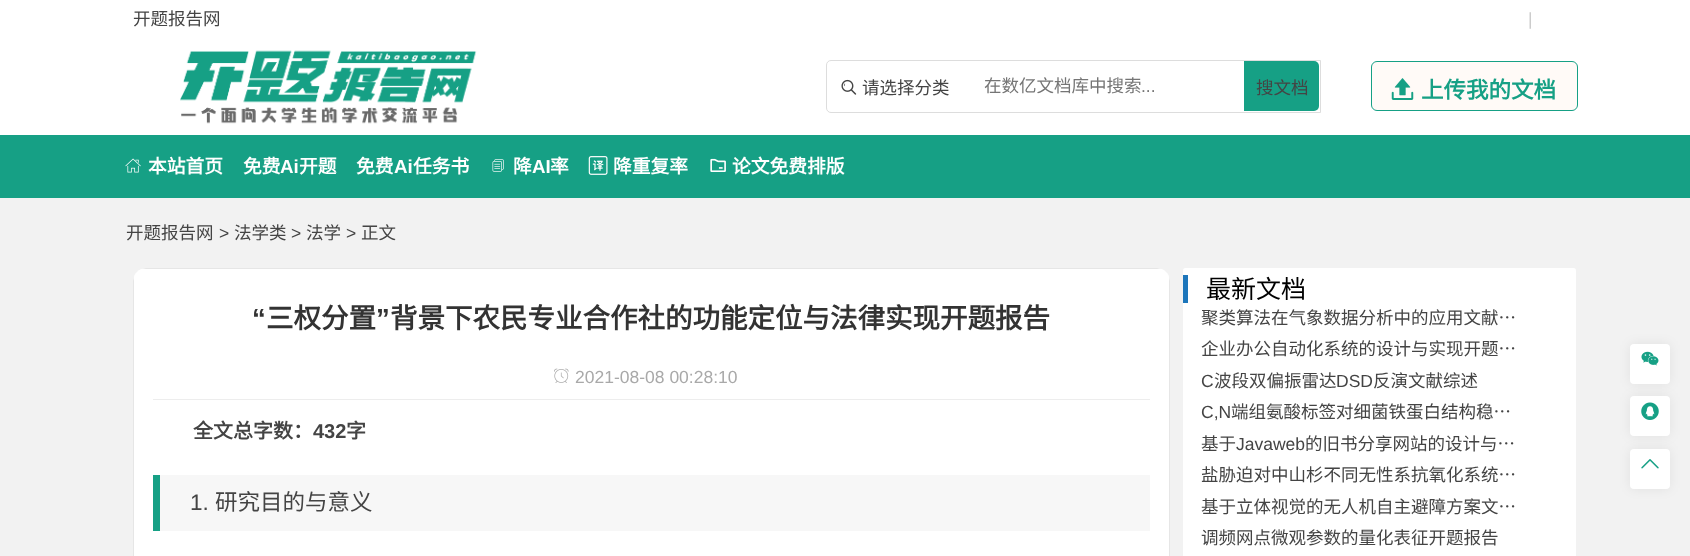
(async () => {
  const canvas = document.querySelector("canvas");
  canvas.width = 1690;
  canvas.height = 556;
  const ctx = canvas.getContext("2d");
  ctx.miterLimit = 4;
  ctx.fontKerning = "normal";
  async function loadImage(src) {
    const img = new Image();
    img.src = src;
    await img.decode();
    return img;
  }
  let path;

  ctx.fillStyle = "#f2f2f2";
  ctx.fillRect(0, 0, 1690, 556);
  ctx.fillStyle = "#ffffff";
  ctx.fillRect(0, 0, 1690, 135);
  ctx.drawImage(await loadImage("img/1.png"), 180, 50, 297, 74);
  ctx.beginPath();
  ctx.roundRect(826.5, 60.5, 494, 52, [4.5, 0, 0, 4.5]);
  ctx.strokeStyle = "#dddddd";
  ctx.stroke();
  ctx.drawImage(await loadImage("img/2.png"), 841, 79, 16, 16);
  ctx.fillStyle = "#16a085";
  ctx.beginPath();
  ctx.roundRect(1244, 61, 75, 50, [0, 5, 5, 0]);
  ctx.fill();
  ctx.fillStyle = "#fffaf7";
  ctx.beginPath();
  ctx.roundRect(1371.5, 61.5, 206, 49, 5.5);
  ctx.fill();
  ctx.strokeStyle = "#16a085";
  ctx.stroke();
  ctx.drawImage(await loadImage("img/3.png"), 1391, 78, 23, 22);
  ctx.fillStyle = "#16a085";
  ctx.fillRect(0, 135, 1690, 63);
  ctx.drawImage(await loadImage("img/4.png"), 125, 158, 16, 15);
  ctx.drawImage(await loadImage("img/5.png"), 492, 159, 12, 13);
  ctx.drawImage(await loadImage("img/6.png"), 588, 156, 20, 19);
  ctx.drawImage(await loadImage("img/7.png"), 710, 158, 16, 14);
  ctx.fillStyle = "#ffffff";
  path = new Path2D("M146 268H1157C1164 268 1170 274 1170 281V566.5C1170 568 1169 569 1167.5 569H135.5C134 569 133 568 133 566.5V281C133 274 139 268 146 268Z");
  ctx.fill(path);
  ctx.fillStyle = "#e6e6e6";
  path = new Path2D("M133 281V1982C133 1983 134 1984 136 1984H1168C1169 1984 1170 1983 1170 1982V281L1169 276V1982C1169 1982 1168 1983 1168 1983H136C135 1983 134 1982 134 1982V276ZM146 268L141 269H1162L1157 268Z");
  ctx.fill(path, "evenodd");
  ctx.fillStyle = "#ededed";
  ctx.fillRect(153, 399, 997, 1);
  ctx.drawImage(await loadImage("img/8.png"), 554, 368, 15, 15);
  ctx.fillStyle = "#f7f7f7";
  ctx.fillRect(160, 475, 990, 56);
  ctx.fillStyle = "#16a085";
  ctx.fillRect(153, 475, 7, 56);
  ctx.fillStyle = "#ffffff";
  ctx.beginPath();
  ctx.roundRect(1183, 268, 393, 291, 2.5);
  ctx.fill();
  ctx.fillStyle = "#1d76bb";
  ctx.fillRect(1183, 275, 5, 28);
  ctx.fillStyle = "rgba(0, 0, 0, 0.07)";
  ctx.filter = "blur(6px)";
  ctx.beginPath();
  ctx.roundRect(1630, 344, 40, 40, 4);
  ctx.fill();
  ctx.filter = "none";
  ctx.fillStyle = "#ffffff";
  ctx.beginPath();
  ctx.roundRect(1630, 344, 40, 40, 4);
  ctx.fill();
  ctx.drawImage(await loadImage("img/9.png"), 1641, 351, 18, 15);
  ctx.fillStyle = "rgba(0, 0, 0, 0.07)";
  ctx.filter = "blur(6px)";
  ctx.beginPath();
  ctx.roundRect(1630, 396, 40, 40, 4);
  ctx.fill();
  ctx.filter = "none";
  ctx.fillStyle = "#ffffff";
  ctx.beginPath();
  ctx.roundRect(1630, 396, 40, 40, 4);
  ctx.fill();
  ctx.drawImage(await loadImage("img/10.png"), 1641, 402, 18, 18);
  ctx.fillStyle = "rgba(0, 0, 0, 0.07)";
  ctx.filter = "blur(6px)";
  ctx.beginPath();
  ctx.roundRect(1630, 449, 40, 40, 4);
  ctx.fill();
  ctx.filter = "none";
  ctx.fillStyle = "#ffffff";
  ctx.beginPath();
  ctx.roundRect(1630, 449, 40, 40, 4);
  ctx.fill();
  ctx.drawImage(await loadImage("img/11.png"), 1641, 459, 18, 10);
  ctx.font = "17.5px Noto Sans CJK SC";
  ctx.fillStyle = "#444444";
  ctx.fillText("开题报告网", 133, 25);
  ctx.font = "17.5px Liberation Sans";
  ctx.fillStyle = "#cccccc";
  ctx.fillText("|", 1528, 25);
  ctx.font = "17.5px Noto Sans CJK SC";
  ctx.fillStyle = "#444444";
  ctx.fillText("请选择分类", 862, 94);
  ctx.fillStyle = "#757575";
  ctx.fillText("在数亿文档库中搜索", 984, 92);
  ctx.font = "17.5px Liberation Sans";
  ctx.fillText("...", 1141, 92);
  ctx.font = "17.5px Noto Sans CJK SC";
  ctx.fillStyle = "#444444";
  ctx.fillText("搜文档", 1256, 94);
  ctx.font = "bold 22.5px Noto Sans CJK SC";
  ctx.fillStyle = "#16a085";
  ctx.fillText("上传我的文档", 1421, 98);
  ctx.font = "bold 18.75px Noto Sans CJK SC";
  ctx.fillStyle = "#ffffff";
  ctx.fillText("本站首页", 148, 173);
  ctx.fillText("免费", 243, 173);
  ctx.font = "bold 18.75px Liberation Sans";
  ctx.fillText("Ai", 280, 173);
  ctx.font = "bold 18.75px Noto Sans CJK SC";
  ctx.fillText("开题", 299, 173);
  ctx.fillText("免费", 356, 173);
  ctx.font = "bold 18.75px Liberation Sans";
  ctx.fillText("Ai", 394, 173);
  ctx.font = "bold 18.75px Noto Sans CJK SC";
  ctx.fillText("任务书", 413, 173);
  ctx.fillText("降", 513, 173);
  ctx.font = "bold 18.75px Liberation Sans";
  ctx.fillText("AI", 532, 173);
  ctx.font = "bold 18.75px Noto Sans CJK SC";
  for (const [text, x, y] of [
    ["率", 550, 173],
    ["降重复率", 613, 173],
    ["论文免费排版", 732, 173],
  ]) {
    ctx.fillText(text, x, y);
  }
  ctx.font = "17.5px Noto Sans CJK SC";
  ctx.fillStyle = "#444444";
  ctx.fillText("开题报告网", 126, 239);
  ctx.font = "17.5px Liberation Sans";
  ctx.fillText(">", 219, 239);
  ctx.font = "17.5px Noto Sans CJK SC";
  ctx.fillText("法学类", 234, 239);
  ctx.font = "17.5px Liberation Sans";
  ctx.fillText(">", 291, 239);
  ctx.font = "17.5px Noto Sans CJK SC";
  ctx.fillText("法学", 306, 239);
  ctx.font = "17.5px Liberation Sans";
  ctx.fillText(">", 346, 239);
  ctx.font = "17.5px Noto Sans CJK SC";
  ctx.fillText("正文", 361, 239);
  ctx.font = "bold 27.5px Liberation Sans";
  ctx.fillStyle = "#333333";
  ctx.fillText("“", 252, 328);
  ctx.font = "bold 27.5px Noto Sans CJK SC";
  ctx.fillText("三权分置", 266, 328);
  ctx.font = "bold 27.5px Liberation Sans";
  ctx.fillText("”", 376, 328);
  ctx.font = "bold 27.5px Noto Sans CJK SC";
  ctx.fillText("背景下农民专业合作社的功能定位与法律实现开题报告", 390, 328);
  ctx.font = "17.5px Liberation Sans";
  ctx.fillStyle = "#a9a9a9";
  ctx.fillText("2021-08-08 00:28:10", 575, 383);
  ctx.font = "bold 20px Noto Sans CJK SC";
  ctx.fillStyle = "#444444";
  ctx.fillText("全文总字数：", 193, 438);
  ctx.font = "bold 20px Liberation Sans";
  ctx.fillText("432", 313, 438);
  ctx.font = "bold 20px Noto Sans CJK SC";
  ctx.fillText("字", 346, 438);
  ctx.font = "22.5px Liberation Sans";
  ctx.fillText("1.", 190, 510);
  ctx.font = "22.5px Noto Sans CJK SC";
  ctx.fillText("研究目的与意义", 215, 510);
  ctx.font = "25px Noto Sans CJK SC";
  ctx.fillStyle = "#000000";
  ctx.fillText("最新文档", 1206, 298);
  ctx.font = "17.5px Noto Sans CJK SC";
  ctx.fillStyle = "#444444";
  ctx.fillText("聚类算法在气象数据分析中的应用文献…", 1201, 324);
  ctx.fillText("企业办公自动化系统的设计与实现开题…", 1201, 355);
  ctx.font = "17.5px Liberation Sans";
  ctx.fillText("C", 1201, 387);
  ctx.font = "17.5px Noto Sans CJK SC";
  ctx.fillText("波段双偏振雷达", 1214, 387);
  ctx.font = "17.5px Liberation Sans";
  ctx.fillText("DSD", 1336, 387);
  ctx.font = "17.5px Noto Sans CJK SC";
  ctx.fillText("反演文献综述", 1373, 387);
  ctx.font = "17.5px Liberation Sans";
  ctx.fillText("C,N", 1201, 418);
  ctx.font = "17.5px Noto Sans CJK SC";
  ctx.fillText("端组氨酸标签对细菌铁蛋白结构稳…", 1231, 418);
  ctx.fillText("基于", 1201, 450);
  ctx.font = "17.5px Liberation Sans";
  ctx.fillText("Javaweb", 1236, 450);
  ctx.font = "17.5px Noto Sans CJK SC";
  for (const [text, x, y] of [
    ["的旧书分享网站的设计与…", 1305, 450],
    ["盐胁迫对中山杉不同无性系抗氧化系统…", 1201, 481],
    ["基于立体视觉的无人机自主避障方案文…", 1201, 513],
    ["调频网点微观参数的量化表征开题报告", 1201, 544],
  ]) {
    ctx.fillText(text, x, y);
  }
})();
